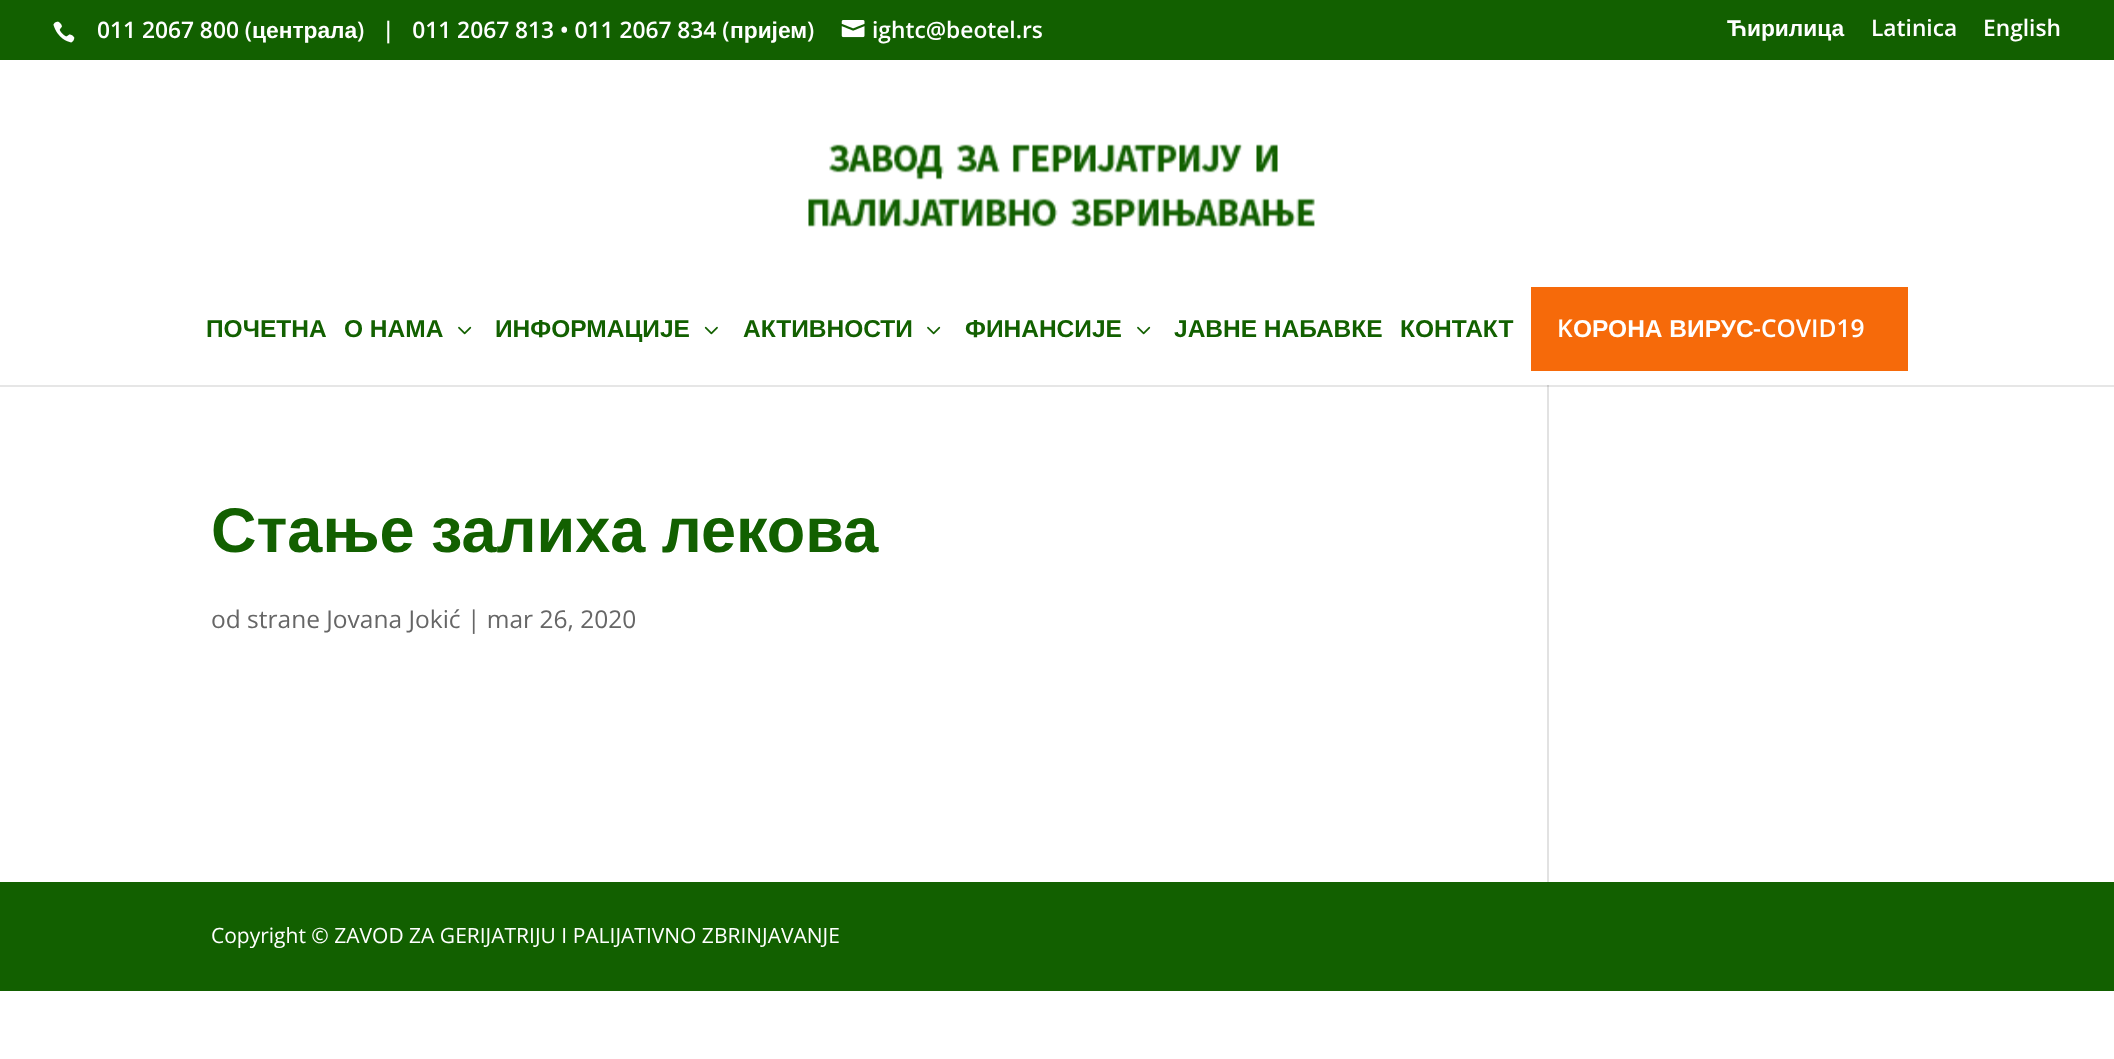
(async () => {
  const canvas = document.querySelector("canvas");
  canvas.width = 2114;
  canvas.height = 1059;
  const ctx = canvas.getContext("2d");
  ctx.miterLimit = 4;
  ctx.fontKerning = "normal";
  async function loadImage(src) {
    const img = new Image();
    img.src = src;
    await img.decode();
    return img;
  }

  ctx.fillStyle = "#ffffff";
  ctx.fillRect(0, 0, 2114, 1059);
  ctx.fillStyle = "#e6e6e6";
  ctx.fillRect(0, 385, 2114, 2);
  ctx.fillStyle = "#126000";
  ctx.fillRect(0, 0, 2114, 60);
  ctx.drawImage(await loadImage("img/1.png"), 53, 21, 22, 22);
  ctx.drawImage(await loadImage("img/2.png"), 841, 20, 24, 18);
  ctx.drawImage(await loadImage("img/3.png"), 808, 144, 507, 83);
  ctx.drawImage(await loadImage("img/4.png"), 458, 326, 14, 9);
  ctx.drawImage(await loadImage("img/5.png"), 704, 326, 14, 9);
  ctx.drawImage(await loadImage("img/4.png"), 927, 326, 14, 9);
  ctx.drawImage(await loadImage("img/4.png"), 1137, 326, 14, 9);
  for (const [x, y, w, h, color] of [
    [1531, 287, 377, 84, "#f66a0a"],
    [1547, 385, 2, 497, "#e2e2e2"],
    [1547, 385, 2, 2, "#cbcbcb"],
    [0, 882, 2114, 109, "#126000"],
  ]) {
    ctx.fillStyle = color;
    ctx.fillRect(x, y, w, h);
  }
  ctx.font = "600 22.75px Open Sans";
  ctx.fillStyle = "#ffffff";
  ctx.fillText("011 2067 800 (", 97, 38);
  ctx.font = "bold 22.75px Liberation Sans";
  ctx.fillText("централа", 252, 38);
  ctx.font = "600 22.75px Open Sans";
  ctx.fillText(")   |   011 2067 813 • 011 2067 834 (", 357, 38);
  ctx.font = "bold 22.75px Liberation Sans";
  ctx.fillText("пријем", 730, 38);
  ctx.font = "600 22.75px Open Sans";
  ctx.fillText(")", 807, 38);
  ctx.fillText("ightc@beotel.rs", 872, 38);
  ctx.font = "bold 22.75px Liberation Sans";
  ctx.fillText("Ћирилица", 1727, 36);
  ctx.font = "600 22.75px Open Sans";
  ctx.fillText("Latinica", 1871, 36);
  ctx.fillText("English", 1983, 36);
  ctx.font = "bold 24.5px Liberation Sans";
  ctx.fillStyle = "#126000";
  for (const [text, x, y] of [
    ["ПОЧЕТНА", 206, 337],
    ["О НАМА", 344, 337],
    ["ИНФОРМАЦИЈЕ", 495, 337],
    ["АКТИВНОСТИ", 743, 337],
    ["ФИНАНСИЈЕ", 965, 337],
    ["ЈАВНЕ НАБАВКЕ", 1174, 337],
    ["КОНТАКТ", 1400, 337],
  ]) {
    ctx.fillText(text, x, y);
  }
  ctx.font = "600 24.5px Open Sans";
  ctx.fillStyle = "#ffffff";
  ctx.fillText("K", 1557, 337);
  ctx.font = "bold 24.5px Liberation Sans";
  ctx.fillText("ОРОНА ВИРУС", 1573, 337);
  ctx.font = "600 24.5px Open Sans";
  ctx.fillText("-COVID19", 1753, 337);
  ctx.wordSpacing = "-1px";
  ctx.font = "bold 63px Liberation Sans";
  ctx.fillStyle = "#126000";
  ctx.fillText("Стање залиха лекова", 211, 552);
  ctx.wordSpacing = "0px";
  ctx.font = "24.5px Open Sans";
  ctx.fillStyle = "#666666";
  ctx.fillText("od strane Jovana Jokić | mar 26, 2020", 211, 628);
  ctx.font = "21px Open Sans";
  ctx.fillStyle = "#ffffff";
  ctx.fillText("Copyright © ZAVOD ZA GERIJATRIJU I PALIJATIVNO ZBRINJAVANJE", 211, 943);
})();
